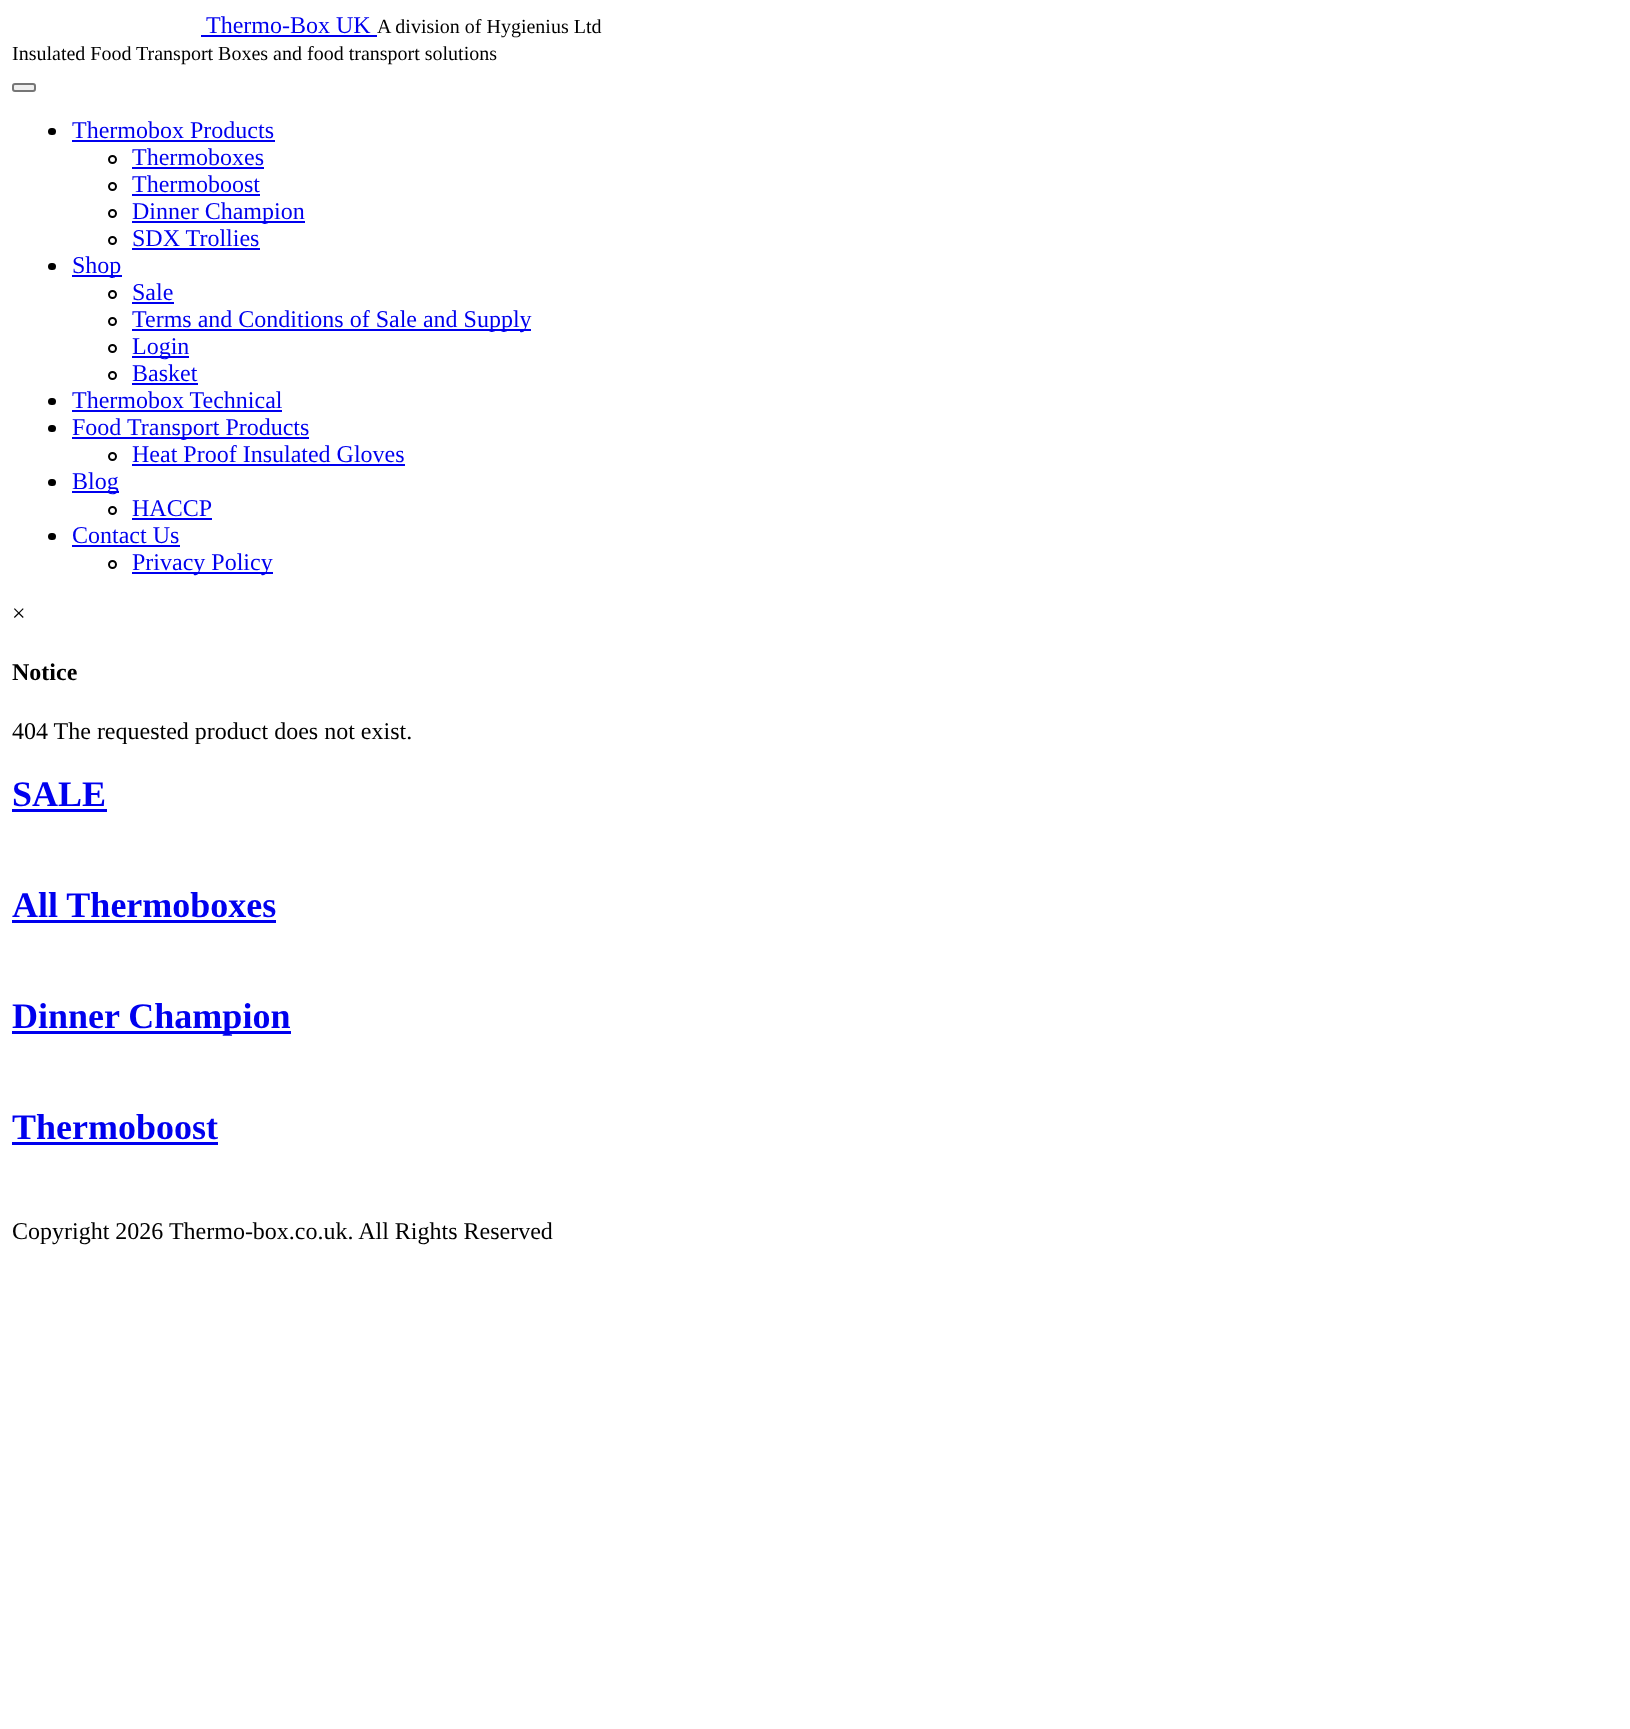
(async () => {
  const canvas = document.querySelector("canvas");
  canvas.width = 1630;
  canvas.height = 1729;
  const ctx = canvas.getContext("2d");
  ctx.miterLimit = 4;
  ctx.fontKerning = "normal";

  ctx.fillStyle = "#ffffff";
  ctx.fillRect(0, 0, 1630, 1729);
  ctx.fillStyle = "#0000ee";
  ctx.fillRect(201, 35, 176, 2);
  ctx.fillStyle = "#efefef";
  ctx.beginPath();
  ctx.roundRect(13, 84, 22, 7, 2);
  ctx.fill();
  ctx.strokeStyle = "#767676";
  ctx.lineWidth = 2;
  ctx.stroke();
  ctx.fillStyle = "#000000";
  ctx.beginPath();
  ctx.roundRect(48, 128, 8, 7, 3.5);
  ctx.fill();
  ctx.fillStyle = "#0000ee";
  ctx.fillRect(72, 140, 203, 2);
  ctx.beginPath();
  ctx.arc(112.5, 159.5, 3.5, 0, Math.PI * 2);
  ctx.strokeStyle = "#000000";
  ctx.stroke();
  ctx.fillRect(132, 167, 132, 2);
  ctx.beginPath();
  ctx.arc(112.5, 186.5, 3.5, 0, Math.PI * 2);
  ctx.stroke();
  ctx.fillRect(132, 194, 128, 2);
  ctx.beginPath();
  ctx.arc(112.5, 213.5, 3.5, 0, Math.PI * 2);
  ctx.stroke();
  ctx.fillRect(132, 221, 173, 2);
  ctx.beginPath();
  ctx.arc(112.5, 240.5, 3.5, 0, Math.PI * 2);
  ctx.stroke();
  ctx.fillRect(132, 248, 128, 2);
  ctx.fillStyle = "#000000";
  ctx.beginPath();
  ctx.roundRect(48, 263, 8, 7, 3.5);
  ctx.fill();
  ctx.fillStyle = "#0000ee";
  ctx.fillRect(72, 275, 50, 2);
  ctx.beginPath();
  ctx.arc(112.5, 294.5, 3.5, 0, Math.PI * 2);
  ctx.stroke();
  ctx.fillRect(132, 302, 42, 2);
  ctx.beginPath();
  ctx.arc(112.5, 321.5, 3.5, 0, Math.PI * 2);
  ctx.stroke();
  ctx.fillRect(132, 329, 399, 2);
  ctx.beginPath();
  ctx.arc(112.5, 348.5, 3.5, 0, Math.PI * 2);
  ctx.stroke();
  ctx.fillRect(132, 356, 57, 2);
  ctx.beginPath();
  ctx.arc(112.5, 375.5, 3.5, 0, Math.PI * 2);
  ctx.stroke();
  ctx.fillRect(132, 383, 66, 2);
  ctx.fillStyle = "#000000";
  ctx.beginPath();
  ctx.roundRect(48, 398, 8, 7, 3.5);
  ctx.fill();
  ctx.fillStyle = "#0000ee";
  ctx.fillRect(72, 410, 210, 2);
  ctx.fillStyle = "#000000";
  ctx.beginPath();
  ctx.roundRect(48, 425, 8, 7, 3.5);
  ctx.fill();
  ctx.fillStyle = "#0000ee";
  ctx.fillRect(72, 437, 237, 2);
  ctx.beginPath();
  ctx.arc(112.5, 456.5, 3.5, 0, Math.PI * 2);
  ctx.stroke();
  ctx.fillRect(132, 464, 273, 2);
  ctx.fillStyle = "#000000";
  ctx.beginPath();
  ctx.roundRect(48, 479, 8, 7, 3.5);
  ctx.fill();
  ctx.fillStyle = "#0000ee";
  ctx.fillRect(72, 491, 47, 2);
  ctx.beginPath();
  ctx.arc(112.5, 510.5, 3.5, 0, Math.PI * 2);
  ctx.stroke();
  ctx.fillRect(132, 518, 80, 2);
  ctx.fillStyle = "#000000";
  ctx.beginPath();
  ctx.roundRect(48, 533, 8, 7, 3.5);
  ctx.fill();
  ctx.fillStyle = "#0000ee";
  ctx.fillRect(72, 545, 108, 2);
  ctx.beginPath();
  ctx.arc(112.5, 564.5, 3.5, 0, Math.PI * 2);
  ctx.stroke();
  for (const [x, y, w, h, color] of [
    [132, 572, 141, 2, "#0000ee"],
    [12, 809, 95, 3, "#0000ee"],
    [12, 920, 264, 3, "#0000ee"],
    [12, 1031, 279, 3, "#0000ee"],
    [12, 1142, 206, 3, "#0000ee"],
  ]) {
    ctx.fillStyle = color;
    ctx.fillRect(x, y, w, h);
  }
  ctx.font = "24px Liberation Serif";
  ctx.fillText("Thermo-Box UK", 206, 33);
  ctx.font = "20px Liberation Serif";
  ctx.fillStyle = "#000000";
  ctx.fillText("A division of Hygienius Ltd", 377, 33);
  ctx.fillText("Insulated Food Transport Boxes and food transport solutions", 12, 60);
  ctx.font = "24px Liberation Serif";
  ctx.fillStyle = "#0000ee";
  for (const [text, x, y] of [
    ["Thermobox Products", 72, 138],
    ["Thermoboxes", 132, 165],
    ["Thermoboost", 132, 192],
    ["Dinner Champion", 132, 219],
    ["SDX Trollies", 132, 246],
    ["Shop", 72, 273],
    ["Sale", 132, 300],
    ["Terms and Conditions of Sale and Supply", 132, 327],
    ["Login", 132, 354],
    ["Basket", 132, 381],
    ["Thermobox Technical", 72, 408],
    ["Food Transport Products", 72, 435],
    ["Heat Proof Insulated Gloves", 132, 462],
    ["Blog", 72, 489],
    ["HACCP", 132, 516],
    ["Contact Us", 72, 543],
    ["Privacy Policy", 132, 570],
  ]) {
    ctx.fillText(text, x, y);
  }
  ctx.fillStyle = "#000000";
  ctx.fillText("×", 12, 621);
  ctx.font = "bold 24px Liberation Serif";
  ctx.fillText("Notice", 12, 680);
  ctx.font = "24px Liberation Serif";
  ctx.fillText("404 The requested product does not exist.", 12, 739);
  ctx.font = "bold 36px Liberation Serif";
  ctx.fillStyle = "#0000ee";
  for (const [text, x, y] of [
    ["SALE", 12, 806],
    ["All Thermoboxes", 12, 917],
    ["Dinner Champion", 12, 1028],
    ["Thermoboost", 12, 1139],
  ]) {
    ctx.fillText(text, x, y);
  }
  ctx.font = "24px Liberation Serif";
  ctx.fillStyle = "#000000";
  ctx.fillText("Copyright 2026 Thermo-box.co.uk. All Rights Reserved", 12, 1239);
})();
